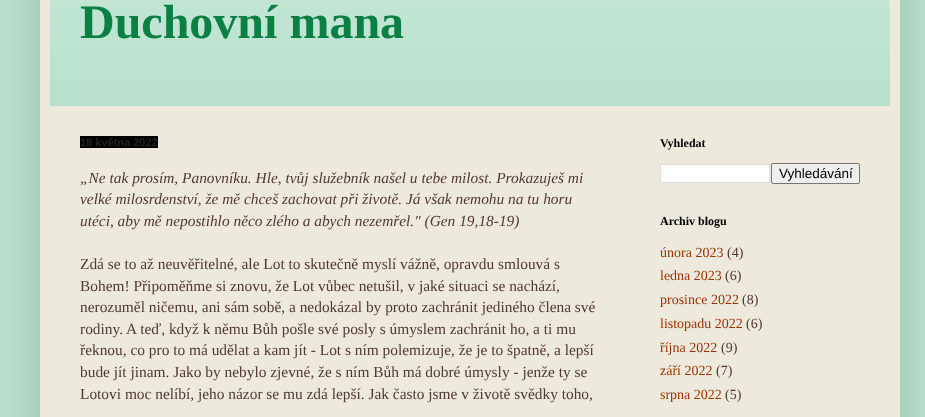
(async () => {
  const canvas = document.querySelector("canvas");
  canvas.width = 925;
  canvas.height = 417;
  const ctx = canvas.getContext("2d");
  ctx.miterLimit = 4;
  ctx.fontKerning = "normal";
  async function loadImage(src) {
    const img = new Image();
    img.src = src;
    await img.decode();
    return img;
  }

  ctx.fillStyle = "#b7e1cd";
  ctx.fillRect(0, 0, 925, 417);
  ctx.fillStyle = "rgba(0, 0, 0, 0.15)";
  ctx.filter = "blur(20px)";
  ctx.beginPath();
  ctx.rect(40, -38, 860, 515);
  ctx.fill();
  ctx.filter = "none";
  ctx.fillStyle = "#eee9dd";
  ctx.fillRect(40, 0, 860, 417);
  ctx.fillStyle = "#b7e1cd";
  ctx.fillRect(50, 0, 840, 106);
  ctx.drawImage(await loadImage("img/1.png"), 50, 0, 840, 79);
  ctx.fillStyle = "#eee5dd";
  ctx.fillRect(630, 136, 1, 281);
  ctx.fillStyle = "#000000";
  ctx.fillRect(80, 136, 78, 12);
  ctx.fillStyle = "#ffffff";
  ctx.beginPath();
  ctx.rect(660.5, 164.5, 109, 18);
  ctx.fill();
  ctx.strokeStyle = "#dddddd";
  ctx.stroke();
  ctx.fillStyle = "#efefef";
  ctx.beginPath();
  ctx.roundRect(771.5, 163.5, 88, 20, 1.5);
  ctx.fill();
  ctx.strokeStyle = "#767676";
  ctx.stroke();
  ctx.font = "bold 48px Liberation Serif";
  ctx.fillStyle = "#0b8043";
  ctx.fillText("Duchovní mana", 80, 38);
  ctx.font = "bold 11px Liberation Sans";
  ctx.fillStyle = "#222222";
  ctx.fillText("18 května 2022", 80, 146);
  ctx.font = "italic 15.4px Liberation Serif";
  ctx.fillStyle = "#513831";
  for (const [text, x, y] of [
    ["„Ne tak prosím, Panovníku. Hle, tvůj služebník našel u tebe milost. Prokazuješ mi", 80, 183],
    ["velké milosrdenství, že mě chceš zachovat při životě. Já však nemohu na tu horu", 80, 204],
    ["utéci, aby mě nepostihlo něco zlého a abych nezemřel.\" (Gen 19,18-19)", 80, 226],
  ]) {
    ctx.fillText(text, x, y);
  }
  ctx.font = "15.4px Liberation Serif";
  for (const [text, x, y] of [
    ["Zdá se to až neuvěřitelné, ale Lot to skutečně myslí vážně, opravdu smlouvá s", 80, 269],
    ["Bohem! Připoměňme si znovu, že Lot vůbec netušil, v jaké situaci se nachází,", 80, 291],
    ["nerozuměl ničemu, ani sám sobě, a nedokázal by proto zachránit jediného člena své", 80, 312],
    ["rodiny. A teď, když k němu Bůh pošle své posly s úmyslem zachránit ho, a ti mu", 80, 334],
    ["řeknou, co pro to má udělat a kam jít - Lot s ním polemizuje, že je to špatně, a lepší", 80, 355],
    ["bude jít jinam. Jako by nebylo zjevné, že s ním Bůh má dobré úmysly - jenže ty se", 80, 377],
    ["Lotovi moc nelíbí, jeho názor se mu zdá lepší. Jak často jsme v životě svědky toho,", 80, 399],
  ]) {
    ctx.fillText(text, x, y);
  }
  ctx.font = "bold 12px Liberation Serif";
  ctx.fillStyle = "#000000";
  ctx.fillText("Vyhledat", 660, 147);
  ctx.font = "13.5px Liberation Sans";
  ctx.fillText("Vyhledávání", 779, 178);
  ctx.font = "bold 12px Liberation Serif";
  ctx.fillText("Archiv blogu", 660, 225);
  ctx.font = "14px Liberation Serif";
  ctx.fillStyle = "#993300";
  ctx.fillText("února 2023", 660, 257);
  ctx.fillStyle = "#513831";
  ctx.fillText("(4)", 727, 257);
  ctx.fillStyle = "#993300";
  ctx.fillText("ledna 2023", 660, 280);
  ctx.fillStyle = "#513831";
  ctx.fillText("(6)", 725, 280);
  ctx.fillStyle = "#993300";
  ctx.fillText("prosince 2022", 660, 304);
  ctx.fillStyle = "#513831";
  ctx.fillText("(8)", 742, 304);
  ctx.fillStyle = "#993300";
  ctx.fillText("listopadu 2022", 660, 328);
  ctx.fillStyle = "#513831";
  ctx.fillText("(6)", 746, 328);
  ctx.fillStyle = "#993300";
  ctx.fillText("října 2022", 660, 352);
  ctx.fillStyle = "#513831";
  ctx.fillText("(9)", 721, 352);
  ctx.fillStyle = "#993300";
  ctx.fillText("září 2022", 660, 375);
  ctx.fillStyle = "#513831";
  ctx.fillText("(7)", 716, 375);
  ctx.fillStyle = "#993300";
  ctx.fillText("srpna 2022", 660, 399);
  ctx.fillStyle = "#513831";
  ctx.fillText("(5)", 725, 399);
})();
